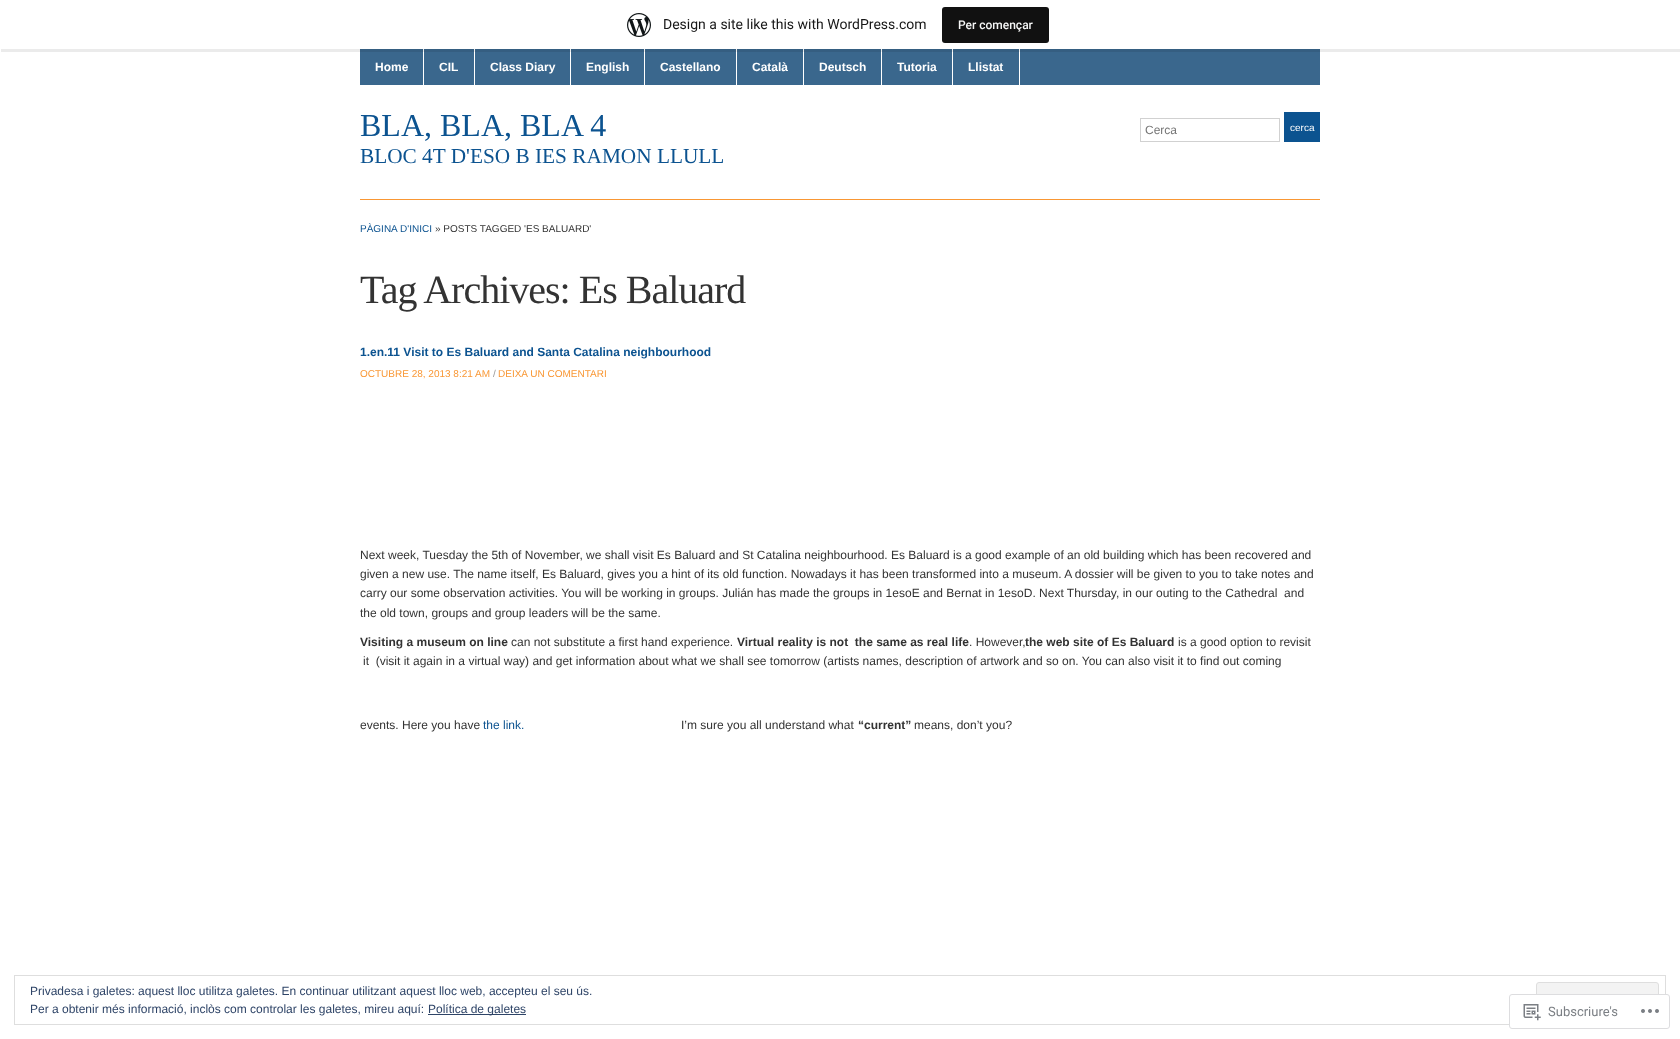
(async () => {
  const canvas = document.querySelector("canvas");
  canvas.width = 1680;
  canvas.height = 1039;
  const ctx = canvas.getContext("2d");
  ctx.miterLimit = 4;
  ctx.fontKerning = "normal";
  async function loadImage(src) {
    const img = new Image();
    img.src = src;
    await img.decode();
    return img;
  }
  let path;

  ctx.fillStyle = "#ffffff";
  ctx.fillRect(0, 0, 1680, 1039);
  for (const [x, y, w, h, color] of [
    [360, 49, 960, 36, "#3a678d"],
    [423, 49, 1, 36, "#ffffff"],
    [474, 49, 1, 36, "#ffffff"],
    [570, 49, 1, 36, "#ffffff"],
    [644, 49, 1, 36, "#ffffff"],
    [736, 49, 1, 36, "#ffffff"],
    [803, 49, 1, 36, "#ffffff"],
    [881, 49, 1, 36, "#ffffff"],
    [952, 49, 1, 36, "#ffffff"],
    [1019, 49, 1, 36, "#ffffff"],
  ]) {
    ctx.fillStyle = color;
    ctx.fillRect(x, y, w, h);
  }
  ctx.fillStyle = "rgba(0, 0, 0, 0.08)";
  path = new Path2D("M1 49V52H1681V3H1680V49Z");
  ctx.fill(path);
  ctx.drawImage(await loadImage("img/1.png"), 627, 13, 24, 24);
  ctx.fillStyle = "#111111";
  ctx.beginPath();
  ctx.roundRect(942, 7, 107, 36, 3);
  ctx.fill();
  ctx.strokeStyle = "#d1d1d1";
  ctx.strokeRect(1140.5, 118.5, 139, 23);
  ctx.fillStyle = "#0c5390";
  ctx.fillRect(1284, 112, 36, 30);
  ctx.fillStyle = "#f99734";
  ctx.fillRect(360, 199, 960, 1);
  ctx.strokeStyle = "#dedede";
  ctx.strokeRect(14.5, 975.5, 1651, 49);
  ctx.fillStyle = "#f3f3f3";
  ctx.beginPath();
  ctx.roundRect(1536.5, 982.5, 122, 29, 2.5);
  ctx.fill();
  ctx.stroke();
  ctx.fillStyle = "#2e4467";
  ctx.fillRect(428, 1014, 98, 1);
  ctx.fillStyle = "rgba(255, 255, 255, 0.98)";
  ctx.beginPath();
  ctx.roundRect(1509.5, 994.5, 160, 34, 2.5);
  ctx.fill();
  ctx.strokeStyle = "#dddddf";
  ctx.stroke();
  ctx.drawImage(await loadImage("img/2.png"), 1523, 1004, 18, 17);
  ctx.drawImage(await loadImage("img/3.png"), 1641, 1009, 18, 4);
  ctx.font = "14px Roboto";
  ctx.fillStyle = "#171717";
  ctx.fillText("Design a site like this with WordPress.com", 663, 29);
  ctx.font = "500 12px Roboto";
  ctx.fillStyle = "#f6f7f7";
  ctx.fillText("Per començar", 958, 29);
  ctx.font = "bold 12px Liberation Sans";
  ctx.fillStyle = "#ffffff";
  for (const [text, x, y] of [
    ["Home", 375, 71],
    ["CIL", 439, 71],
    ["Class Diary", 490, 71],
    ["English", 586, 71],
    ["Castellano", 660, 71],
    ["Català", 752, 71],
    ["Deutsch", 819, 71],
    ["Tutoria", 897, 71],
    ["Llistat", 968, 71],
  ]) {
    ctx.fillText(text, x, y);
  }
  ctx.font = "32px Liberation Serif";
  ctx.fillStyle = "#0c5390";
  ctx.fillText("BLA, BLA, BLA 4", 360, 136);
  ctx.font = "21.3px Liberation Serif";
  ctx.fillText("BLOC 4T D'ESO B IES RAMON LLULL", 360, 163);
  ctx.font = "12px Liberation Sans";
  ctx.fillStyle = "#757575";
  ctx.fillText("Cerca", 1145, 134);
  ctx.font = "10px Liberation Sans";
  ctx.fillStyle = "#ffffff";
  ctx.fillText("cerca", 1290, 131);
  ctx.fillStyle = "#0c5390";
  ctx.fillText("PÀGINA D'INICI", 360, 232);
  ctx.fillStyle = "#333333";
  ctx.fillText("» POSTS TAGGED 'ES BALUARD'", 435, 232);
  ctx.letterSpacing = "-1px";
  ctx.font = "40px Liberation Serif";
  ctx.fillText("Tag Archives: Es Baluard", 360, 303);
  ctx.letterSpacing = "0px";
  ctx.font = "bold 12px Liberation Sans";
  ctx.fillStyle = "#0c5390";
  ctx.fillText("1.en.11 Visit to Es Baluard and Santa Catalina neighbourhood", 360, 356);
  ctx.font = "10px Liberation Sans";
  ctx.fillStyle = "#f99734";
  ctx.fillText("OCTUBRE 28, 2013 8:21 AM", 360, 377);
  ctx.fillStyle = "#999999";
  ctx.fillText("/", 493, 377);
  ctx.fillStyle = "#f99734";
  ctx.fillText("DEIXA UN COMENTARI", 498, 377);
  ctx.font = "12px Liberation Sans";
  ctx.fillStyle = "#333333";
  for (const [text, x, y] of [
    ["Next week, Tuesday the 5th of November, we shall visit Es Baluard and St Catalina neighbourhood. Es Baluard is a good example of an old building which has been recovered and", 360, 559],
    ["given a new use. The name itself, Es Baluard, gives you a hint of its old function. Nowadays it has been transformed into a museum. A dossier will be given to you to take notes and", 360, 578],
    ["carry our some observation activities. You will be working in groups. Julián has made the groups in 1esoE and Bernat in 1esoD. Next Thursday, in our outing to the Cathedral  and", 360, 597],
    ["the old town, groups and group leaders will be the same.", 360, 617],
  ]) {
    ctx.fillText(text, x, y);
  }
  ctx.font = "bold 12px Liberation Sans";
  ctx.fillText("Visiting a museum on line", 360, 646);
  ctx.font = "12px Liberation Sans";
  ctx.fillText("can not substitute a first hand experience.", 511, 646);
  ctx.font = "bold 12px Liberation Sans";
  ctx.fillText("Virtual reality is not  the same as real life", 737, 646);
  ctx.font = "12px Liberation Sans";
  ctx.fillText(". However,", 969, 646);
  ctx.font = "bold 12px Liberation Sans";
  ctx.fillText("the web site of Es Baluard", 1025, 646);
  ctx.font = "12px Liberation Sans";
  for (const [text, x, y] of [
    ["is a good option to revisit", 1178, 646],
    ["it  (visit it again in a virtual way) and get information about what we shall see tomorrow (artists names, description of artwork and so on. You can also visit it to find out coming", 363, 665],
    ["events. Here you have", 360, 729],
  ]) {
    ctx.fillText(text, x, y);
  }
  ctx.fillStyle = "#0c5390";
  ctx.fillText("the link.", 483, 729);
  ctx.fillStyle = "#333333";
  ctx.fillText("I’m sure you all understand what", 681, 729);
  ctx.font = "bold 12px Liberation Sans";
  ctx.fillText("“current”", 858, 729);
  ctx.font = "12px Liberation Sans";
  ctx.fillText("means, don’t you?", 914, 729);
  ctx.fillStyle = "#2e4467";
  for (const [text, x, y] of [
    ["Privadesa i galetes: aquest lloc utilitza galetes. En continuar utilitzant aquest lloc web, accepteu el seu ús.", 30, 995],
    ["Per a obtenir més informació, inclòs com controlar les galetes, mireu aquí:", 30, 1013],
    ["Política de galetes", 428, 1013],
  ]) {
    ctx.fillText(text, x, y);
  }
  ctx.font = "13px Roboto";
  ctx.fillStyle = "#7b7f84";
  ctx.fillText("Subscriure's", 1548, 1016);
})();
